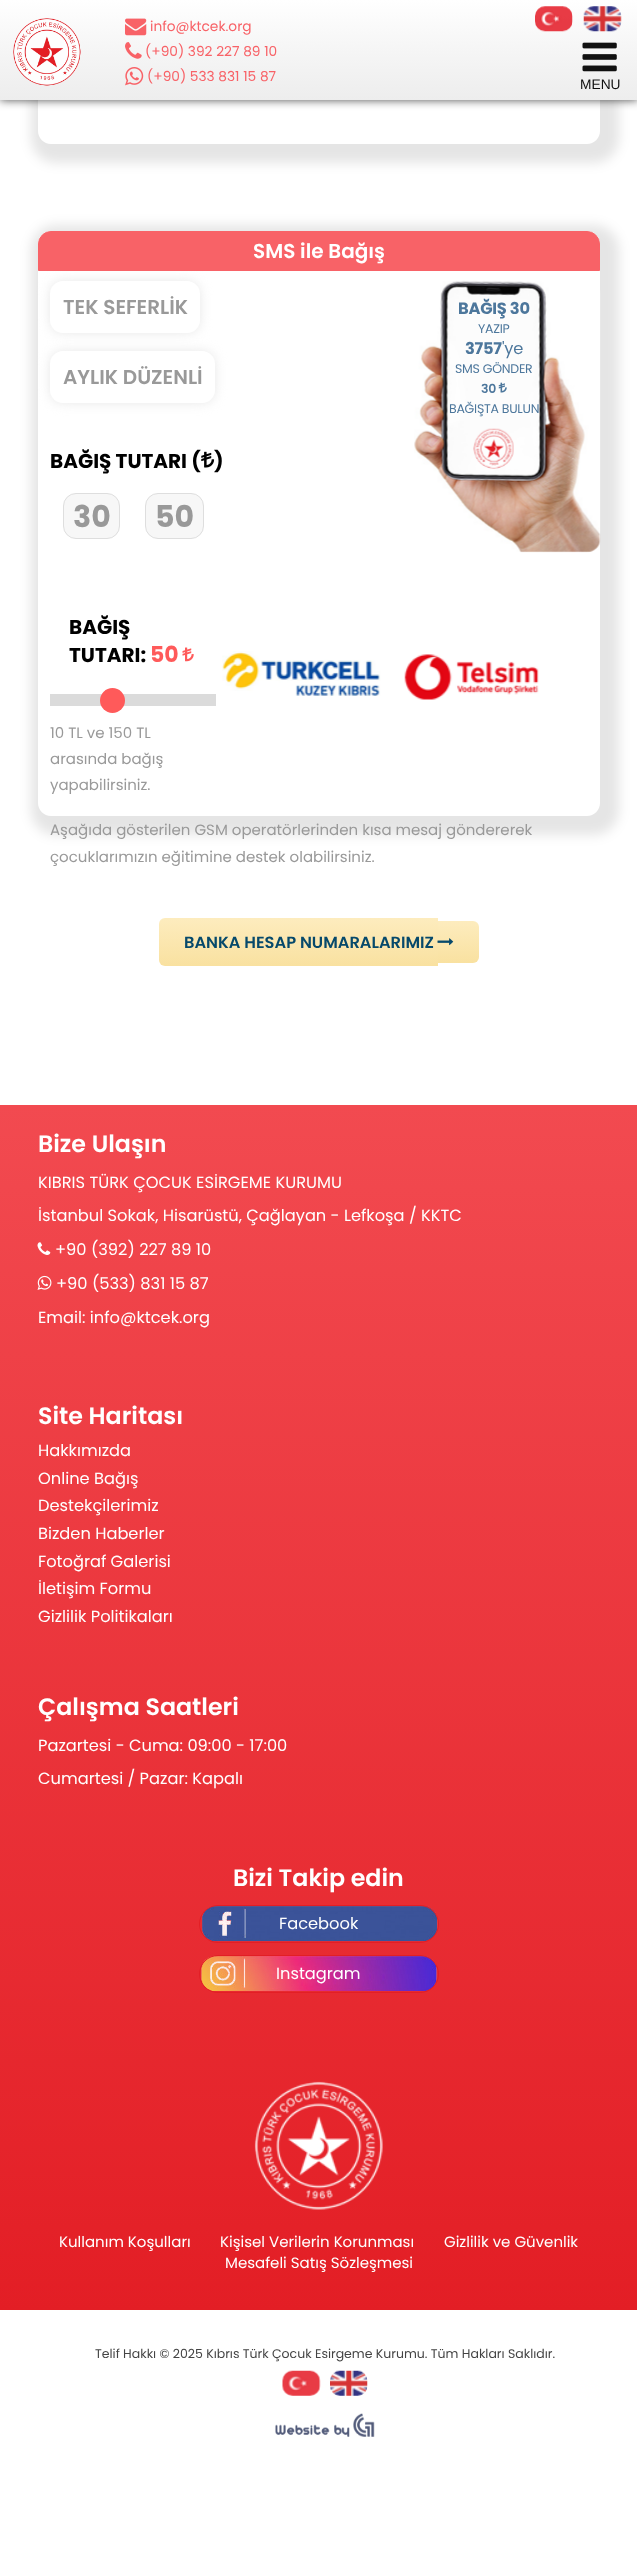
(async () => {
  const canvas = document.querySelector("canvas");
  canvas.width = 637;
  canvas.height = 2550;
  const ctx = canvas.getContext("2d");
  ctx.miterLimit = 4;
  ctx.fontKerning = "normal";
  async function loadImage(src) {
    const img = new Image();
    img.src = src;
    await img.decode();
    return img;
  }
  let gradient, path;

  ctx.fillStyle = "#ffffff";
  ctx.fillRect(0, 0, 637, 2550);
  ctx.fillStyle = "rgba(0, 0, 0, 0.7)";
  ctx.filter = "blur(5px)";
  ctx.beginPath();
  ctx.rect(0, 0, 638, 100);
  ctx.fill();
  ctx.filter = "none";
  ctx.save();
  path = new Path2D("M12 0H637V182H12ZM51-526H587C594-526 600-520 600-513V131C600 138 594 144 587 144H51C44 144 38 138 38 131V-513C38-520 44-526 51-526Z");
  ctx.clip(path, "evenodd");
  ctx.fillStyle = "rgba(0, 0, 0, 0.1)";
  ctx.filter = "blur(6px)";
  ctx.beginPath();
  ctx.roundRect(31, -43, 588, 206, 25);
  ctx.fill();
  ctx.filter = "none";
  ctx.restore();
  gradient = ctx.createLinearGradient(319, 0, 319, 100);
  gradient.addColorStop(0, "#ffffff");
  gradient.addColorStop(0.47, "#f6f6f6");
  gradient.addColorStop(1, "#ededed");
  ctx.fillStyle = gradient;
  ctx.fillRect(0, 0, 637, 100);
  ctx.drawImage(await loadImage("img/1.png"), 13, 18, 68, 68);
  ctx.drawImage(await loadImage("img/2.png"), 125, 18, 22, 18);
  ctx.drawImage(await loadImage("img/3.png"), 125, 42, 17, 17);
  ctx.drawImage(await loadImage("img/4.png"), 125, 67, 19, 19);
  ctx.drawImage(await loadImage("img/5.png"), 535, 6, 38, 26);
  ctx.drawImage(await loadImage("img/6.png"), 583, 6, 39, 26);
  ctx.drawImage(await loadImage("img/7.png"), 582, 42, 35, 30);
  ctx.save();
  path = new Path2D("M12 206H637V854H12ZM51 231H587C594 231 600 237 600 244V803C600 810 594 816 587 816H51C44 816 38 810 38 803V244C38 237 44 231 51 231Z");
  ctx.clip(path, "evenodd");
  ctx.fillStyle = "rgba(0, 0, 0, 0.1)";
  ctx.filter = "blur(6px)";
  ctx.beginPath();
  ctx.roundRect(31, 225, 588, 610, 25);
  ctx.fill();
  ctx.filter = "none";
  ctx.restore();
  ctx.fillStyle = "rgba(230, 230, 230, 0.9)";
  ctx.filter = "blur(6px)";
  ctx.beginPath();
  ctx.roundRect(50, 281, 150, 52, 13);
  ctx.fill();
  ctx.filter = "none";
  ctx.fillStyle = "#f86267";
  ctx.beginPath();
  ctx.roundRect(38.5, 231.5, 561, 39, [12.5, 12.5, 0, 0]);
  ctx.fill();
  ctx.strokeStyle = "#f86267";
  ctx.stroke();
  ctx.fillStyle = "#ffffff";
  ctx.beginPath();
  ctx.roundRect(50, 281, 150, 52, 13);
  ctx.fill();
  ctx.fillStyle = "rgba(230, 230, 230, 0.9)";
  ctx.filter = "blur(6px)";
  ctx.beginPath();
  ctx.roundRect(50, 351, 165, 52, 13);
  ctx.fill();
  ctx.filter = "none";
  ctx.fillStyle = "#ffffff";
  ctx.beginPath();
  ctx.roundRect(50, 351, 165, 52, 13);
  ctx.fill();
  ctx.drawImage(await loadImage("img/8.png"), 201, 451, 14, 17);
  ctx.fillStyle = "#f7f7f7";
  ctx.beginPath();
  ctx.roundRect(63.5, 493.5, 56, 45, 12.5);
  ctx.fill();
  ctx.strokeStyle = "#dedede";
  ctx.stroke();
  ctx.beginPath();
  ctx.roundRect(145.5, 493.5, 58, 45, 12.5);
  ctx.fill();
  ctx.stroke();
  ctx.drawImage(await loadImage("img/9.png"), 182, 647, 12, 15);
  ctx.fillStyle = "#dbdbdb";
  ctx.fillRect(50, 694, 166, 12);
  ctx.fillStyle = "#ff5a5a";
  ctx.beginPath();
  ctx.arc(112.5, 700.5, 12.5, 0, Math.PI * 2);
  ctx.fill();
  ctx.drawImage(await loadImage("img/10.png"), 414, 280, 187, 273);
  ctx.drawImage(await loadImage("img/11.png"), 498, 382, 9, 11);
  ctx.drawImage(await loadImage("img/12.png"), 222, 651, 317, 49);
  gradient = ctx.createLinearGradient(298, 918, 298, 966);
  gradient.addColorStop(0, "#fdecbe");
  gradient.addColorStop(1, "#f9e1a0");
  ctx.fillStyle = gradient;
  ctx.beginPath();
  ctx.roundRect(159, 918, 279, 48, [6, 0, 0, 6]);
  ctx.fill();
  gradient = ctx.createLinearGradient(458, 921, 458, 963);
  gradient.addColorStop(0, "#fdecbe");
  gradient.addColorStop(1, "#f9e1a0");
  ctx.fillStyle = gradient;
  ctx.beginPath();
  ctx.roundRect(438, 921, 41, 42, [0, 6, 6, 0]);
  ctx.fill();
  ctx.drawImage(await loadImage("img/13.png"), 437, 938, 17, 8);
  gradient = ctx.createLinearGradient(319, 1105, 319, 2310);
  gradient.addColorStop(0, "#f24a50");
  gradient.addColorStop(1, "#e31e25");
  ctx.fillStyle = gradient;
  ctx.fillRect(0, 1105, 637, 1205);
  ctx.drawImage(await loadImage("img/14.png"), 37, 1242, 14, 13);
  ctx.drawImage(await loadImage("img/15.png"), 37, 1275, 15, 15);
  ctx.drawImage(await loadImage("img/16.png"), 202, 1906, 236, 36);
  ctx.beginPath();
  ctx.roundRect(199.5, 1905.5, 239, 37, 18.5);
  ctx.strokeStyle = "#e31e25";
  ctx.stroke();
  ctx.drawImage(await loadImage("img/17.png"), 201, 1955, 236, 36);
  ctx.beginPath();
  ctx.roundRect(199.5, 1955.5, 239, 37, 18.5);
  ctx.stroke();
  ctx.drawImage(await loadImage("img/18.png"), 254, 2081, 129, 129);
  ctx.drawImage(await loadImage("img/19.png"), 282, 2370, 39, 26);
  ctx.drawImage(await loadImage("img/20.png"), 330, 2370, 38, 26);
  ctx.drawImage(await loadImage("img/21.png"), 275, 2413, 100, 24);
  ctx.font = "13.75px Poppins";
  ctx.fillStyle = "#f86267";
  for (const [text, x, y] of [
    ["info@ktcek.org", 150, 31],
    ["(+90) 392 227 89 10", 145, 56],
    ["(+90) 533 831 15 87", 147, 81],
  ]) {
    ctx.fillText(text, x, y);
  }
  ctx.font = "13.75px Liberation Sans";
  ctx.fillStyle = "#111111";
  ctx.fillText("MENU", 580, 89);
  ctx.font = "600 20px Poppins";
  ctx.fillStyle = "#ffffff";
  ctx.fillText("SMS ile Bağış", 253, 258);
  ctx.fillStyle = "#999999";
  ctx.fillText("TEK SEFERLİK", 63, 314);
  ctx.fillText("AYLIK DÜZENLİ", 63, 384);
  ctx.font = "bold 20px Poppins";
  ctx.fillStyle = "#000000";
  ctx.fillText("BAĞIŞ TUTARI (", 50, 468);
  ctx.fillText(")", 214, 468);
  ctx.font = "bold 30px Poppins";
  ctx.fillStyle = "#999999";
  ctx.fillText("30", 73, 527);
  ctx.fillText("50", 155, 527);
  ctx.font = "bold 20px Poppins";
  ctx.fillStyle = "#000000";
  ctx.fillText("BAĞIŞ", 69, 634);
  ctx.fillText("TUTARI:", 69, 662);
  ctx.font = "bold 22px Poppins";
  ctx.fillStyle = "#ff5a5a";
  ctx.fillText("50", 150, 662);
  ctx.font = "15px Poppins";
  ctx.fillStyle = "#999999";
  for (const [text, x, y] of [
    ["10 TL ve 150 TL", 50, 738],
    ["arasında bağış", 50, 764],
    ["yapabilirsiniz.", 50, 790],
    ["Aşağıda gösterilen GSM operatörlerinden kısa mesaj göndererek", 50, 835],
    ["çocuklarımızın eğitimine destek olabilirsiniz.", 50, 862],
  ]) {
    ctx.fillText(text, x, y);
  }
  ctx.letterSpacing = "-0.25px";
  ctx.font = "bold 16.25px Poppins";
  ctx.fillStyle = "#4d779c";
  ctx.fillText("BAĞIŞ 30", 458, 314);
  ctx.font = "12.5px Poppins";
  ctx.fillText("YAZIP", 478, 333);
  ctx.font = "bold 16.25px Poppins";
  ctx.fillText("3757", 465, 354);
  ctx.font = "16.25px Poppins";
  ctx.fillText("'ye", 502, 354);
  ctx.font = "12.5px Poppins";
  ctx.fillText("SMS GÖNDER", 455, 373);
  ctx.font = "600 12.5px Poppins";
  ctx.fillText("30", 481, 393);
  ctx.font = "12.5px Poppins";
  ctx.fillText("BAĞIŞTA BULUN", 449, 413);
  ctx.letterSpacing = "0px";
  ctx.font = "600 16.25px Poppins";
  ctx.fillStyle = "#06496b";
  ctx.fillText("BANKA HESAP NUMARALARIMIZ", 184, 948);
  ctx.font = "600 23.75px Poppins";
  ctx.fillStyle = "#ffffff";
  ctx.fillText("Bize Ulaşın", 38, 1152);
  ctx.font = "16.25px Poppins";
  for (const [text, x, y] of [
    ["KIBRIS TÜRK ÇOCUK ESİRGEME KURUMU", 38, 1188],
    ["İstanbul Sokak, Hisarüstü, Çağlayan - Lefkoşa / KKTC", 38, 1221],
    ["+90 (392) 227 89 10", 55, 1255],
    ["+90 (533) 831 15 87", 56, 1289],
    ["Email: info@ktcek.org", 38, 1323],
  ]) {
    ctx.fillText(text, x, y);
  }
  ctx.font = "600 23.75px Poppins";
  ctx.fillText("Site Haritası", 38, 1424);
  ctx.font = "16.25px Poppins";
  for (const [text, x, y] of [
    ["Hakkımızda", 38, 1456],
    ["Online Bağış", 38, 1484],
    ["Destekçilerimiz", 38, 1511],
    ["Bizden Haberler", 38, 1539],
    ["Fotoğraf Galerisi", 38, 1567],
    ["İletişim Formu", 38, 1594],
    ["Gizlilik Politikaları", 38, 1622],
  ]) {
    ctx.fillText(text, x, y);
  }
  ctx.font = "600 23.75px Poppins";
  ctx.fillText("Çalışma Saatleri", 38, 1715);
  ctx.font = "16.25px Poppins";
  ctx.fillText("Pazartesi - Cuma: 09:00 - 17:00", 38, 1751);
  ctx.fillText("Cumartesi / Pazar: Kapalı", 38, 1784);
  ctx.font = "600 23.75px Poppins";
  ctx.fillText("Bizi Takip edin", 233, 1886);
  ctx.font = "16.25px Poppins";
  ctx.fillText("Facebook", 279, 1929);
  ctx.fillText("Instagram", 276, 1979);
  ctx.font = "15px Poppins";
  for (const [text, x, y] of [
    ["Kullanım Koşulları", 59, 2247],
    ["Kişisel Verilerin Korunması", 220, 2247],
    ["Gizlilik ve Güvenlik", 444, 2247],
    ["Mesafeli Satış Sözleşmesi", 225, 2268],
  ]) {
    ctx.fillText(text, x, y);
  }
  ctx.font = "12.5px Poppins";
  ctx.fillStyle = "#444444";
  ctx.fillText("Telif Hakkı © 2025 Kıbrıs Türk Çocuk Esirgeme Kurumu. Tüm Hakları Saklıdır.", 95, 2358);
})();
